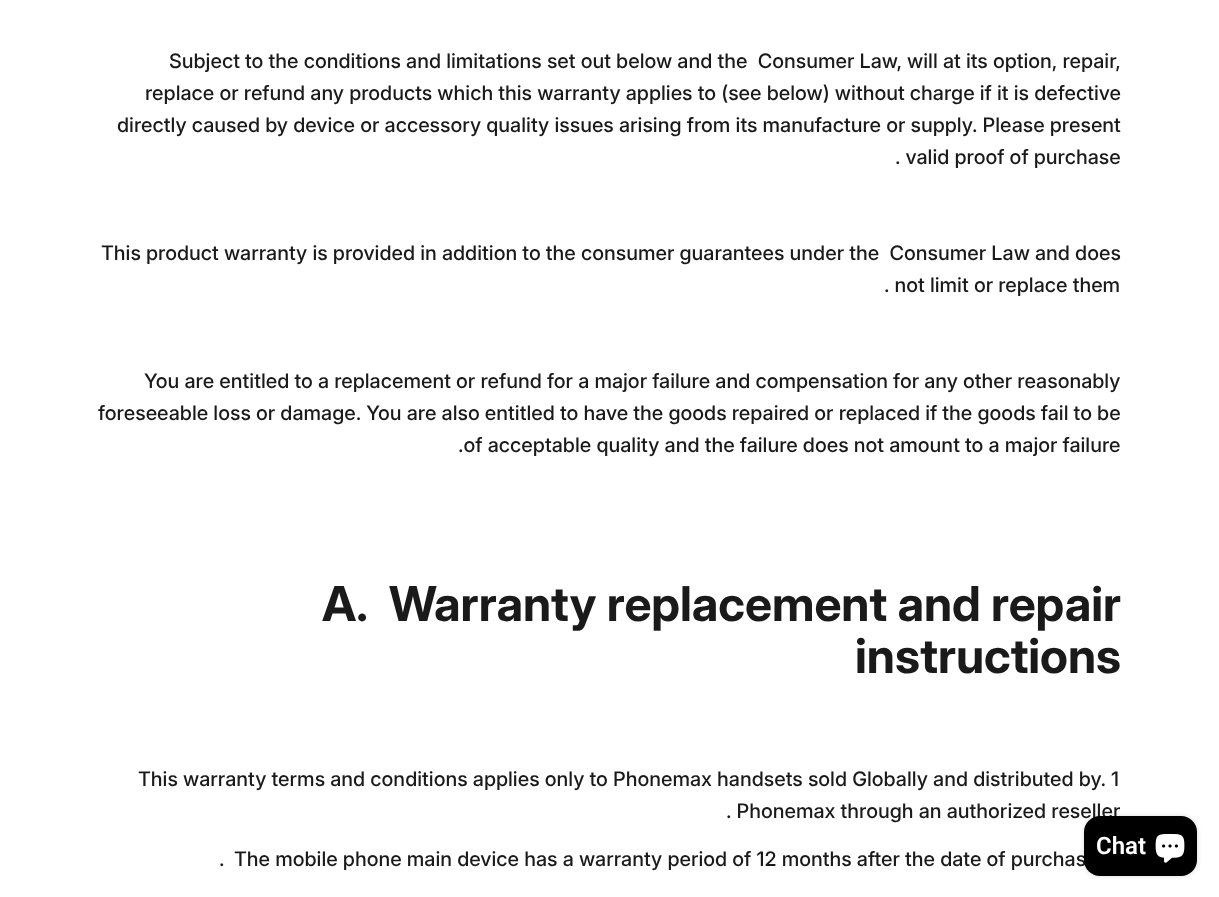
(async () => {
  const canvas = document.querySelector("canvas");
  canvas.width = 1219;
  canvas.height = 897;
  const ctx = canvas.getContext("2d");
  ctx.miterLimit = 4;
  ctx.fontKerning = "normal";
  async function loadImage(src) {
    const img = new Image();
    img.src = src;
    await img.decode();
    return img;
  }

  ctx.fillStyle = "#ffffff";
  ctx.fillRect(0, 0, 1219, 897);
  ctx.fillStyle = "rgba(0, 0, 0, 0.15)";
  ctx.filter = "blur(2.5px)";
  ctx.beginPath();
  ctx.roundRect(1084, 816, 113, 60, 16);
  ctx.fill();
  ctx.filter = "none";
  ctx.font = "500 20px Inter";
  ctx.fillStyle = "#1a1a1a";
  for (const [text, x, y] of [
    ["Subject to the conditions and limitations set out below and the  Consumer Law, will at its option, repair,", 169, 68],
    ["replace or refund any products which this warranty applies to (see below) without charge if it is defective", 145, 100],
    ["directly caused by device or accessory quality issues arising from its manufacture or supply. Please present", 117, 132],
    [". valid proof of purchase", 895, 164],
    ["This product warranty is provided in addition to the consumer guarantees under the  Consumer Law and does", 101, 260],
    [". not limit or replace them", 884, 292],
    ["You are entitled to a replacement or refund for a major failure and compensation for any other reasonably", 144, 388],
    ["foreseeable loss or damage. You are also entitled to have the goods repaired or replaced if the goods fail to be", 98, 420],
    [".of acceptable quality and the failure does not amount to a major failure", 458, 452],
  ]) {
    ctx.fillText(text, x, y);
  }
  ctx.font = "bold 48px Inter";
  for (const [text, x, y] of [
    ["A.", 322, 621],
    ["Warranty replacement and repair", 389, 621],
    ["instructions", 855, 673],
  ]) {
    ctx.fillText(text, x, y);
  }
  ctx.font = "500 20px Inter";
  for (const [text, x, y] of [
    ["This warranty terms and conditions applies only to Phonemax handsets sold Globally and distributed by. 1", 138, 786],
    [". Phonemax through an authorized reseller", 726, 818],
    [".", 219, 866],
    ["The mobile phone main device has a warranty period of 12 months after the date of purchas", 234, 866],
  ]) {
    ctx.fillText(text, x, y);
  }
  ctx.fillStyle = "#000000";
  ctx.beginPath();
  ctx.roundRect(1084, 816, 113, 60, 16);
  ctx.fill();
  ctx.font = "600 24px Roboto";
  ctx.fillStyle = "#ffffff";
  ctx.fillText("Chat", 1096, 854);
  ctx.drawImage(await loadImage("img/1.png"), 1155, 834, 30, 29);
})();
